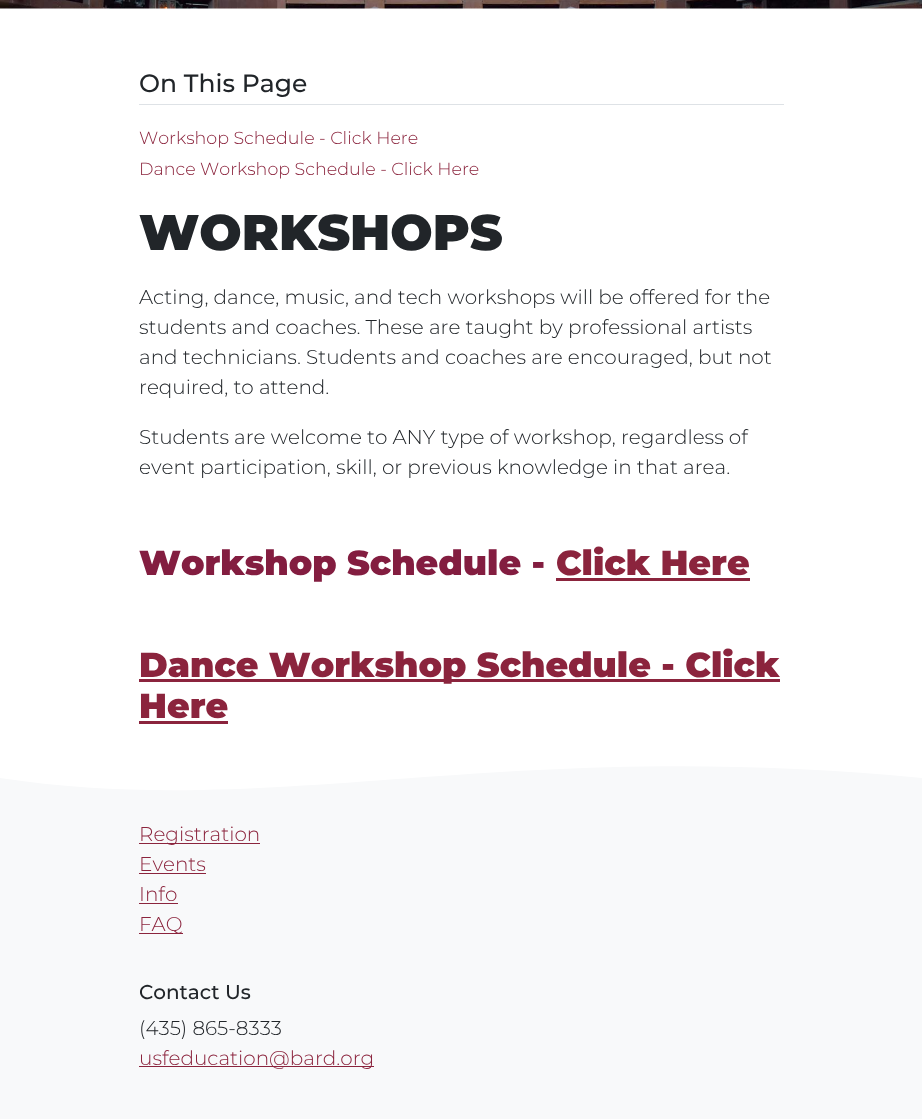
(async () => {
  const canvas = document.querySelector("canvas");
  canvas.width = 922;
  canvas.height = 1119;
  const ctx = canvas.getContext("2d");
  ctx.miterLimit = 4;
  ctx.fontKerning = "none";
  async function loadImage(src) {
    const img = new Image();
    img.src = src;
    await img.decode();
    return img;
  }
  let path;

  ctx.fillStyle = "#ffffff";
  ctx.fillRect(0, 0, 922, 1119);
  ctx.drawImage(await loadImage("img/1.png"), 0, 0, 922, 9);
  for (const [x, y, w, h, color] of [
    [139, 104, 645, 1, "#dee2e6"],
    [556, 578, 194, 3, "#8b243d"],
    [139, 679, 641, 3, "#8b243d"],
    [139, 721, 89, 3, "#8b243d"],
    [0, 766, 922, 353, "#f8f9fa"],
  ]) {
    ctx.fillStyle = color;
    ctx.fillRect(x, y, w, h);
  }
  ctx.fillStyle = "#ffffff";
  path = new Path2D("M0 778C277 820 501 737 922 778V758H0Z");
  ctx.fill(path);
  for (const [x, y, w, h, color] of [
    [139, 843, 121, 1, "#8b243d"],
    [139, 873, 67, 1, "#8b243d"],
    [139, 903, 39, 1, "#8b243d"],
    [139, 933, 44, 1, "#8b243d"],
    [139, 1066, 235, 1, "#8b243d"],
  ]) {
    ctx.fillStyle = color;
    ctx.fillRect(x, y, w, h);
  }
  ctx.font = "500 25px Montserrat";
  ctx.fillStyle = "#212529";
  ctx.fillText("On This Page", 139, 92);
  ctx.font = "300 17.5px Montserrat";
  ctx.fillStyle = "#8b243d";
  ctx.fillText("Workshop Schedule - Click Here", 139, 144);
  ctx.fillText("Dance Workshop Schedule - Click Here", 139, 175);
  ctx.font = "900 50px Montserrat";
  ctx.fillStyle = "#212529";
  ctx.fillText("WORKSHOPS", 139, 250);
  ctx.font = "300 20px Montserrat";
  for (const [text, x, y] of [
    ["Acting, dance, music, and tech workshops will be offered for the", 139, 304],
    ["students and coaches. These are taught by professional artists", 139, 334],
    ["and technicians. Students and coaches are encouraged, but not", 139, 364],
    ["required, to attend.", 139, 394],
    ["Students are welcome to ANY type of workshop, regardless of", 139, 444],
    ["event participation, skill, or previous knowledge in that area.", 139, 474],
  ]) {
    ctx.fillText(text, x, y);
  }
  ctx.font = "900 34.75px Montserrat";
  ctx.fillStyle = "#831d40";
  ctx.fillText("Workshop Schedule -", 139, 575);
  ctx.fillStyle = "#8b243d";
  for (const [text, x, y] of [
    ["Click Here", 556, 575],
    ["Dance Workshop Schedule - Click", 139, 677],
    ["Here", 139, 718],
  ]) {
    ctx.fillText(text, x, y);
  }
  ctx.font = "300 20px Montserrat";
  for (const [text, x, y] of [
    ["Registration", 139, 841],
    ["Events", 139, 871],
    ["Info", 139, 901],
    ["FAQ", 139, 931],
  ]) {
    ctx.fillText(text, x, y);
  }
  ctx.font = "500 20px Montserrat";
  ctx.fillStyle = "#212529";
  ctx.fillText("Contact Us", 139, 999);
  ctx.font = "300 20px Montserrat";
  ctx.fillText("(435) 865-8333", 139, 1035);
  ctx.fillStyle = "#8b243d";
  ctx.fillText("usfeducation@bard.org", 139, 1065);
})();
